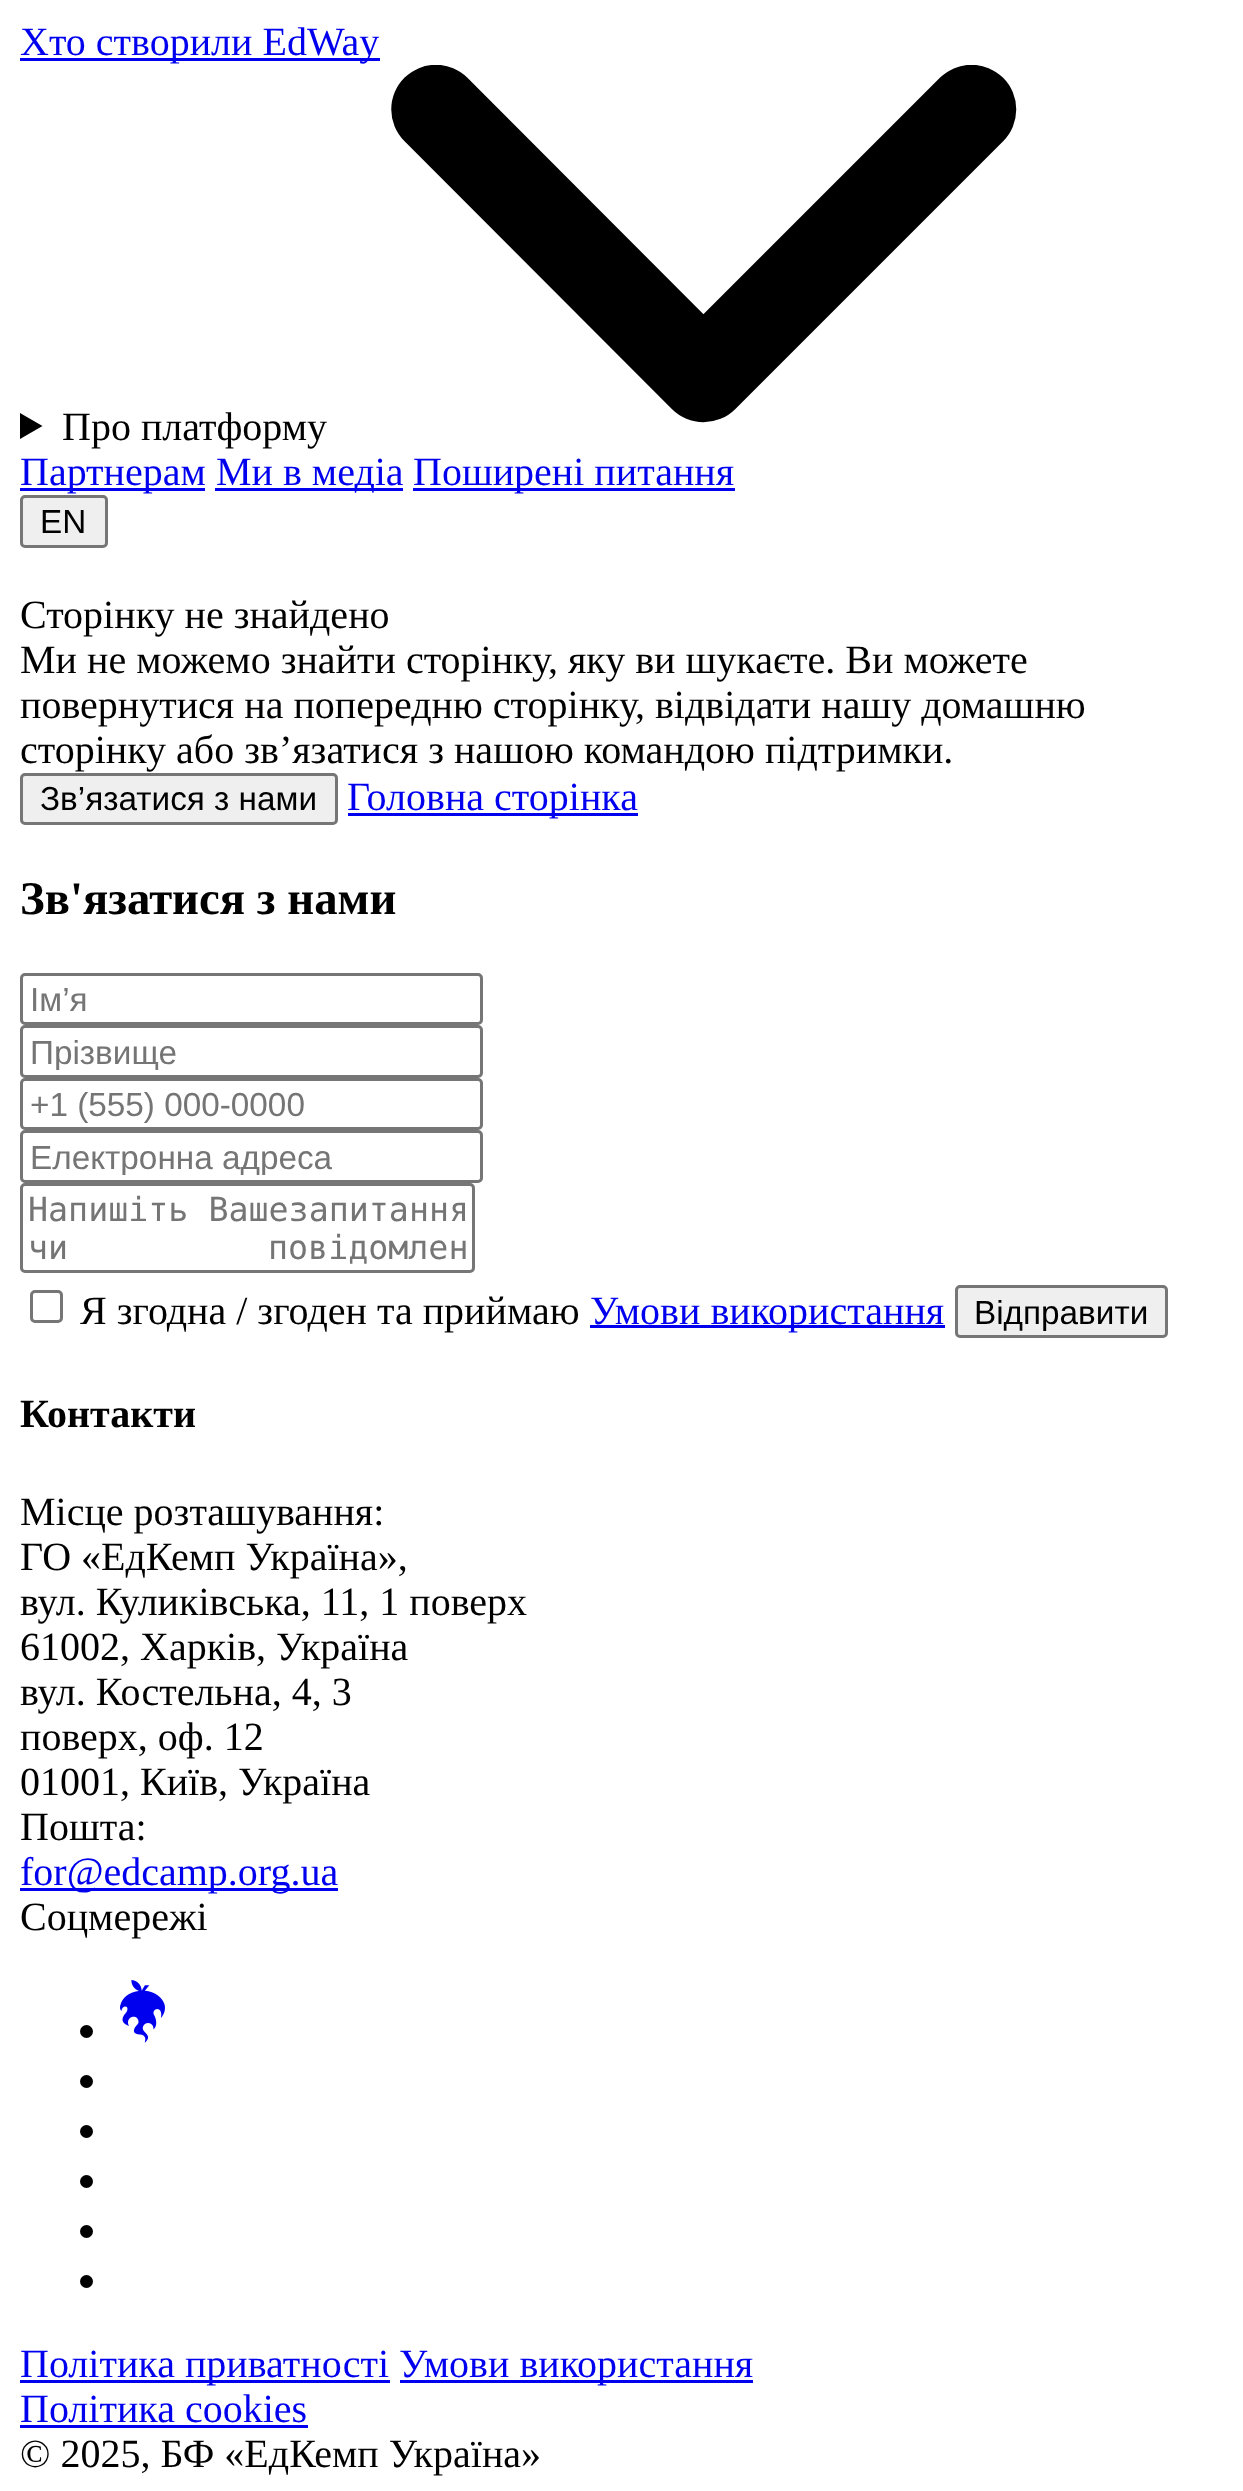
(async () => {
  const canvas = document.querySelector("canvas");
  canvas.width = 1243;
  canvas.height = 2491;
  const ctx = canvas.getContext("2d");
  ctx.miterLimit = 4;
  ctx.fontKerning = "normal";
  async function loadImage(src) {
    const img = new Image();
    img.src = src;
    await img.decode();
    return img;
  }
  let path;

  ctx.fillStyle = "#ffffff";
  ctx.fillRect(0, 0, 1243, 2491);
  ctx.fillStyle = "#0000ee";
  ctx.fillRect(20, 58, 360, 3);
  ctx.save();
  ctx.beginPath();
  ctx.rect(338, 65, 750, 375);
  ctx.clip();
  path = new Path2D("M436 109.5L703.5 377.5L971.5 109.5");
  ctx.strokeStyle = "#000000";
  ctx.lineWidth = 89.5;
  ctx.lineCap = "round";
  ctx.lineJoin = "round";
  ctx.stroke(path);
  ctx.restore();
  ctx.fillStyle = "#000000";
  path = new Path2D("M20 413L42.5 426L20 439Z");
  ctx.fill(path);
  for (const [x, y, w, h, color] of [
    [20, 488, 185, 3, "#0000ee"],
    [215, 488, 188, 3, "#0000ee"],
    [413, 488, 322, 3, "#0000ee"],
  ]) {
    ctx.fillStyle = color;
    ctx.fillRect(x, y, w, h);
  }
  ctx.fillStyle = "#efefef";
  ctx.beginPath();
  ctx.roundRect(21.5, 496.5, 85, 50, 3.5);
  ctx.fill();
  ctx.strokeStyle = "#767676";
  ctx.lineWidth = 3;
  ctx.stroke();
  ctx.beginPath();
  ctx.roundRect(21.5, 774.5, 315, 49, 3.5);
  ctx.fill();
  ctx.stroke();
  ctx.fillStyle = "#0000ee";
  ctx.fillRect(348, 813, 290, 3);
  ctx.beginPath();
  ctx.roundRect(21.5, 974.5, 460, 49, 3.5);
  ctx.stroke();
  ctx.beginPath();
  ctx.roundRect(21.5, 1026.5, 460, 50, 3.5);
  ctx.stroke();
  ctx.beginPath();
  ctx.roundRect(21.5, 1079.5, 460, 49, 3.5);
  ctx.stroke();
  ctx.beginPath();
  ctx.roundRect(21.5, 1131.5, 460, 50, 3.5);
  ctx.stroke();
  ctx.beginPath();
  ctx.roundRect(21.5, 1184.5, 452, 87, 3.5);
  ctx.stroke();
  ctx.beginPath();
  ctx.roundRect(31.5, 1291.5, 30, 30, 3.5);
  ctx.stroke();
  ctx.fillRect(590, 1325, 355, 3);
  ctx.fillStyle = "#efefef";
  ctx.beginPath();
  ctx.roundRect(956.5, 1286.5, 210, 50, 3.5);
  ctx.fill();
  ctx.stroke();
  ctx.fillStyle = "#0000ee";
  ctx.fillRect(20, 1888, 318, 3);
  ctx.fillStyle = "#000000";
  ctx.beginPath();
  ctx.arc(86.5, 2031.5, 6.5, 0, Math.PI * 2);
  ctx.fill();
  ctx.drawImage(await loadImage("img/1.png"), 120, 1980, 45, 63);
  ctx.beginPath();
  ctx.arc(86.5, 2081.5, 6.5, 0, Math.PI * 2);
  ctx.fill();
  ctx.beginPath();
  ctx.arc(86.5, 2131.5, 6.5, 0, Math.PI * 2);
  ctx.fill();
  ctx.beginPath();
  ctx.arc(86.5, 2181.5, 6.5, 0, Math.PI * 2);
  ctx.fill();
  ctx.beginPath();
  ctx.arc(86.5, 2231.5, 6.5, 0, Math.PI * 2);
  ctx.fill();
  ctx.beginPath();
  ctx.arc(86.5, 2281.5, 6.5, 0, Math.PI * 2);
  ctx.fill();
  for (const [x, y, w, h, color] of [
    [20, 2380, 370, 3, "#0000ee"],
    [400, 2380, 353, 3, "#0000ee"],
    [20, 2425, 288, 3, "#0000ee"],
  ]) {
    ctx.fillStyle = color;
    ctx.fillRect(x, y, w, h);
  }
  ctx.font = "40px Liberation Serif";
  ctx.fillText("Хто створили EdWay", 20, 55);
  ctx.fillStyle = "#000000";
  ctx.fillText("Про платформу", 62, 440);
  ctx.fillStyle = "#0000ee";
  for (const [text, x, y] of [
    ["Партнерам", 20, 485],
    ["Ми в медіа", 216, 485],
    ["Поширені питання", 413, 485],
  ]) {
    ctx.fillText(text, x, y);
  }
  ctx.font = "33.3px Liberation Sans";
  ctx.fillStyle = "#000000";
  ctx.fillText("EN", 40, 533);
  ctx.font = "40px Liberation Serif";
  for (const [text, x, y] of [
    ["Сторінку не знайдено", 20, 628],
    ["Ми не можемо знайти сторінку, яку ви шукаєте. Ви можете", 20, 673],
    ["повернутися на попередню сторінку, відвідати нашу домашню", 20, 718],
    ["сторінку або зв’язатися з нашою командою підтримки.", 20, 763],
  ]) {
    ctx.fillText(text, x, y);
  }
  ctx.font = "33.3px Liberation Sans";
  ctx.fillText("Зв’язатися з нами", 40, 810);
  ctx.font = "40px Liberation Serif";
  ctx.fillStyle = "#0000ee";
  ctx.fillText("Головна сторінка", 347, 810);
  ctx.font = "bold 46.75px Liberation Serif";
  ctx.fillStyle = "#000000";
  ctx.fillText("Зв'язатися з нами", 20, 914);
  ctx.font = "33.3px Liberation Sans";
  ctx.fillStyle = "#757575";
  ctx.fillText("Ім’я", 30, 1011);
  ctx.save();
  ctx.beginPath();
  ctx.rect(30, 1033, 443, 37);
  ctx.clip();
  ctx.fillText("Прізвище", 30, 1064);
  ctx.restore();
  ctx.fillText("+1 (555) 000-0000", 30, 1116);
  ctx.save();
  ctx.beginPath();
  ctx.rect(30, 1138, 443, 37);
  ctx.clip();
  ctx.fillText("Eлектронна адреса", 30, 1169);
  ctx.restore();
  ctx.font = "33.3px DejaVu Sans Mono";
  for (const [text, x, y] of [
    ["Напишіть Вашезапитання", 28, 1221],
    ["чи", 28, 1259],
    ["повідомлен", 268, 1259],
  ]) {
    ctx.fillText(text, x, y);
  }
  ctx.font = "40px Liberation Serif";
  ctx.fillStyle = "#000000";
  ctx.fillText("Я згодна / згоден та приймаю", 80, 1324);
  ctx.fillStyle = "#0000ee";
  ctx.fillText("Умови використання", 590, 1324);
  ctx.font = "33.3px Liberation Sans";
  ctx.fillStyle = "#000000";
  ctx.fillText("Відправити", 974, 1324);
  ctx.font = "bold 40px Liberation Serif";
  ctx.fillText("Контакти", 20, 1427);
  ctx.font = "40px Liberation Serif";
  for (const [text, x, y] of [
    ["Місце розташування:", 20, 1525],
    ["ГО «ЕдКемп Україна»,", 20, 1570],
    ["вул. Куликівська, 11, 1 поверх", 20, 1615],
    ["61002, Харків, Україна", 20, 1660],
    ["вул. Костельна, 4, 3", 20, 1705],
    ["поверх, оф. 12", 20, 1750],
    ["01001, Київ, Україна", 20, 1795],
    ["Пошта:", 20, 1840],
  ]) {
    ctx.fillText(text, x, y);
  }
  ctx.fillStyle = "#0000ee";
  ctx.fillText("for@edcamp.org.ua", 20, 1885);
  ctx.fillStyle = "#000000";
  ctx.fillText("Соцмережі", 20, 1930);
  ctx.fillStyle = "#0000ee";
  for (const [text, x, y] of [
    ["Політика приватності", 20, 2377],
    ["Умови використання", 399, 2377],
    ["Політика cookies", 20, 2422],
  ]) {
    ctx.fillText(text, x, y);
  }
  ctx.fillStyle = "#000000";
  ctx.fillText("© 2025, БФ «ЕдКемп Україна»", 20, 2467);
})();
